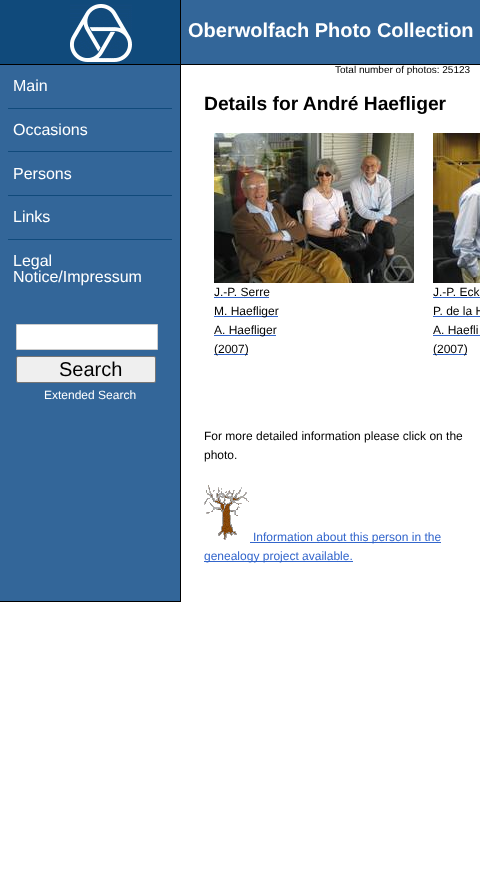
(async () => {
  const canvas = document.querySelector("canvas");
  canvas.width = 480;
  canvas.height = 896;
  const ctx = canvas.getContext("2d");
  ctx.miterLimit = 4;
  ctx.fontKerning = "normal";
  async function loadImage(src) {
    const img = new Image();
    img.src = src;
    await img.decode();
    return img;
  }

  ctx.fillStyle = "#ffffff";
  ctx.fillRect(0, 0, 480, 896);
  for (const [x, y, w, h, color] of [
    [181, 0, 299, 64, "#336699"],
    [0, 64, 480, 1, "#000000"],
    [0, 0, 180, 64, "#104a7b"],
    [180, 0, 1, 64, "#000000"],
  ]) {
    ctx.fillStyle = color;
    ctx.fillRect(x, y, w, h);
  }
  ctx.drawImage(await loadImage("img/1.png"), 70, 4, 62, 58);
  for (const [x, y, w, h, color] of [
    [0, 65, 180, 536, "#336699"],
    [180, 65, 1, 537, "#000000"],
    [0, 601, 181, 1, "#000000"],
    [8, 108, 164, 1, "#104a7b"],
    [8, 151, 164, 1, "#104a7b"],
    [8, 195, 164, 1, "#104a7b"],
    [8, 239, 164, 1, "#104a7b"],
  ]) {
    ctx.fillStyle = color;
    ctx.fillRect(x, y, w, h);
  }
  ctx.fillStyle = "#ffffff";
  ctx.beginPath();
  ctx.rect(16.5, 324.5, 141, 25);
  ctx.fill();
  ctx.strokeStyle = "#cccccc";
  ctx.stroke();
  ctx.fillStyle = "#efefef";
  ctx.beginPath();
  ctx.roundRect(16.5, 356.5, 139, 26, 1.5);
  ctx.fill();
  ctx.strokeStyle = "#767676";
  ctx.stroke();
  ctx.drawImage(await loadImage("img/2.png"), 214, 133, 200, 150);
  for (const [x, y, w, h, color] of [
    [214, 297, 55, 1, "#3366cc"],
    [214, 316, 64, 1, "#3366cc"],
    [214, 335, 62, 1, "#3366cc"],
    [214, 354, 34, 1, "#3366cc"],
  ]) {
    ctx.fillStyle = color;
    ctx.fillRect(x, y, w, h);
  }
  ctx.drawImage(await loadImage("img/3.png"), 433, 133, 47, 150);
  for (const [x, y, w, h, color] of [
    [433, 297, 47, 1, "#3366cc"],
    [433, 316, 47, 1, "#3366cc"],
    [433, 335, 47, 1, "#3366cc"],
    [433, 354, 34, 1, "#3366cc"],
  ]) {
    ctx.fillStyle = color;
    ctx.fillRect(x, y, w, h);
  }
  ctx.drawImage(await loadImage("img/4.png"), 204, 485, 45, 55);
  ctx.fillRect(250, 542, 191, 1);
  ctx.fillRect(204, 561, 149, 1);
  ctx.font = "bold 20px Liberation Sans";
  ctx.fillStyle = "#ffffff";
  ctx.fillText("Oberwolfach Photo Collection", 188, 37);
  ctx.font = "10px Liberation Sans";
  ctx.fillStyle = "#000000";
  ctx.fillText("Total number of photos: 25123", 335, 73);
  ctx.font = "16px Liberation Sans";
  ctx.fillStyle = "#ffffff";
  for (const [text, x, y] of [
    ["Main", 13, 91],
    ["Occasions", 13, 135],
    ["Persons", 13, 179],
    ["Links", 13, 222],
    ["Legal", 13, 266],
    ["Notice/Impressum", 13, 282],
  ]) {
    ctx.fillText(text, x, y);
  }
  ctx.font = "20px Liberation Sans";
  ctx.fillStyle = "#000000";
  ctx.fillText("Search", 59, 376);
  ctx.font = "12px Liberation Sans";
  ctx.fillStyle = "#ffffff";
  ctx.fillText("Extended Search", 44, 399);
  ctx.font = "bold 19.25px Liberation Sans";
  ctx.fillStyle = "#000000";
  ctx.fillText("Details for André Haefliger", 204, 110);
  ctx.font = "12px Liberation Sans";
  for (const [text, x, y] of [
    ["J.-P. Serre", 214, 296],
    ["M. Haefliger", 214, 315],
    ["A. Haefliger", 214, 334],
    ["(2007)", 214, 353],
    ["J.-P. Eck", 433, 296],
    ["P. de la H", 433, 315],
    ["A. Haefli", 433, 334],
    ["(2007)", 433, 353],
    ["For more detailed information please click on the", 204, 440],
    ["photo.", 204, 459],
  ]) {
    ctx.fillText(text, x, y);
  }
  ctx.fillStyle = "#3366cc";
  ctx.fillText("Information about this person in the", 253, 541);
  ctx.fillText("genealogy project available.", 204, 560);
})();
